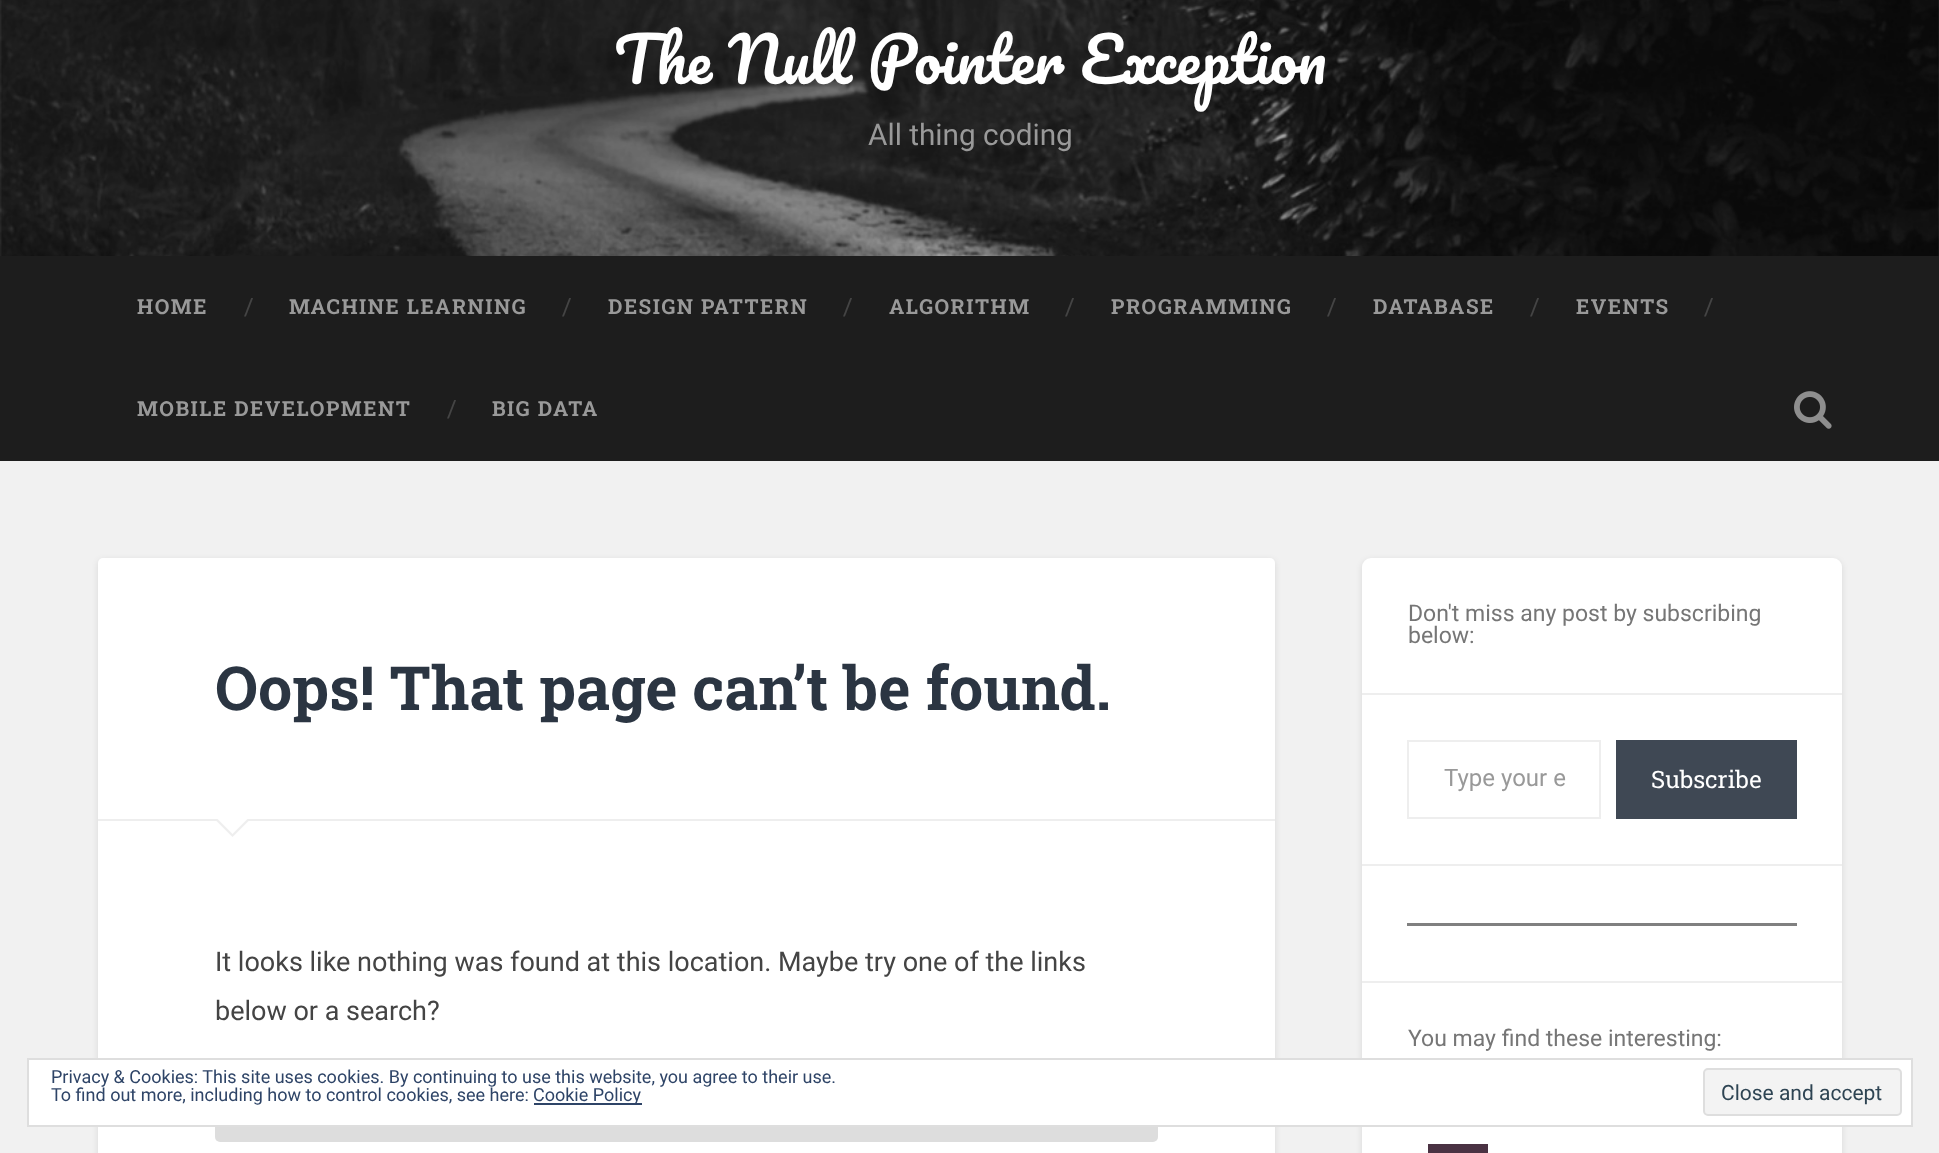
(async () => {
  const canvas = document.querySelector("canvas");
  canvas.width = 1939;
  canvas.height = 1153;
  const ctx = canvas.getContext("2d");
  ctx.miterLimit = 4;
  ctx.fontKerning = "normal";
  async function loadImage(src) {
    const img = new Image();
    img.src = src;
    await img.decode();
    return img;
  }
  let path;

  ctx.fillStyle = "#f1f1f1";
  ctx.fillRect(0, 0, 1939, 1153);
  ctx.fillStyle = "#1d1d1d";
  ctx.fillRect(0, 256, 1939, 205);
  ctx.drawImage(await loadImage("img/1.png"), 0, 0, 1939, 256);
  ctx.drawImage(await loadImage("img/2.png"), 1794, 391, 38, 38);
  ctx.fillStyle = "rgba(0, 0, 0, 0.1)";
  ctx.filter = "blur(3px)";
  ctx.beginPath();
  ctx.roundRect(98, 560, 1177, 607, 5);
  ctx.fill();
  ctx.filter = "none";
  ctx.fillStyle = "#ffffff";
  ctx.beginPath();
  ctx.roundRect(98, 558, 1177, 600, 5);
  ctx.fill();
  ctx.fillStyle = "#eeeeee";
  ctx.fillRect(98, 819, 1177, 2);
  path = new Path2D("M214.5 819H250.5L232.5 837Z");
  ctx.fill(path);
  ctx.fillStyle = "#ffffff";
  path = new Path2D("M216 817.5H249L232.5 834Z");
  ctx.fill(path);
  ctx.fillStyle = "#dddddd";
  ctx.beginPath();
  ctx.roundRect(215, 1065, 943, 77, 5);
  ctx.fill();
  ctx.fillStyle = "rgba(0, 0, 0, 0.1)";
  ctx.filter = "blur(3px)";
  ctx.beginPath();
  ctx.roundRect(1362, 560, 480, 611, 9);
  ctx.fill();
  ctx.filter = "none";
  ctx.fillStyle = "#ffffff";
  ctx.beginPath();
  ctx.roundRect(1362, 558, 480, 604, 9);
  ctx.fill();
  ctx.fillStyle = "#eeeeee";
  ctx.fillRect(1362, 693, 480, 2);
  ctx.strokeStyle = "#eeeeee";
  ctx.lineWidth = 2;
  ctx.strokeRect(1408, 741, 192, 77);
  for (const [x, y, w, h, color] of [
    [1616, 740, 181, 79, "#3f4854"],
    [1362, 864, 480, 2, "#eeeeee"],
    [1407, 923, 390, 3, "#808080"],
    [1362, 981, 480, 2, "#eeeeee"],
    [1428, 1144, 60, 9, "#4a3243"],
  ]) {
    ctx.fillStyle = color;
    ctx.fillRect(x, y, w, h);
  }
  ctx.fillStyle = "#ffffff";
  ctx.beginPath();
  ctx.rect(28, 1059, 1884, 67);
  ctx.fill();
  ctx.strokeStyle = "#dedede";
  ctx.stroke();
  ctx.fillStyle = "#2e4467";
  ctx.fillRect(534, 1103, 108, 2);
  ctx.fillStyle = "#f3f3f3";
  ctx.beginPath();
  ctx.roundRect(1704, 1069, 197, 46, 4);
  ctx.fill();
  ctx.stroke();
  ctx.font = "60.75px Pacifico";
  ctx.fillStyle = "#ffffff";
  ctx.fillText("The Null Pointer Exception", 614, 84);
  ctx.font = "29.75px Roboto";
  ctx.fillStyle = "#999999";
  ctx.fillText("All thing coding", 868, 145);
  ctx.letterSpacing = "1.5px";
  ctx.font = "bold 20.7px Roboto Slab";
  ctx.fillText("HOME", 137, 314);
  ctx.letterSpacing = "0px";
  ctx.font = "24px Roboto Slab";
  ctx.fillStyle = "#444444";
  ctx.fillText("/", 244, 315);
  ctx.letterSpacing = "1.5px";
  ctx.font = "bold 20.7px Roboto Slab";
  ctx.fillStyle = "#999999";
  ctx.fillText("MACHINE LEARNING", 289, 314);
  ctx.letterSpacing = "0px";
  ctx.font = "24px Roboto Slab";
  ctx.fillStyle = "#444444";
  ctx.fillText("/", 562, 315);
  ctx.letterSpacing = "1.5px";
  ctx.font = "bold 20.7px Roboto Slab";
  ctx.fillStyle = "#999999";
  ctx.fillText("DESIGN PATTERN", 608, 314);
  ctx.letterSpacing = "0px";
  ctx.font = "24px Roboto Slab";
  ctx.fillStyle = "#444444";
  ctx.fillText("/", 843, 315);
  ctx.letterSpacing = "1.5px";
  ctx.font = "bold 20.7px Roboto Slab";
  ctx.fillStyle = "#999999";
  ctx.fillText("ALGORITHM", 889, 314);
  ctx.letterSpacing = "0px";
  ctx.font = "24px Roboto Slab";
  ctx.fillStyle = "#444444";
  ctx.fillText("/", 1065, 315);
  ctx.letterSpacing = "1.5px";
  ctx.font = "bold 20.7px Roboto Slab";
  ctx.fillStyle = "#999999";
  ctx.fillText("PROGRAMMING", 1111, 314);
  ctx.letterSpacing = "0px";
  ctx.font = "24px Roboto Slab";
  ctx.fillStyle = "#444444";
  ctx.fillText("/", 1327, 315);
  ctx.letterSpacing = "1.5px";
  ctx.font = "bold 20.7px Roboto Slab";
  ctx.fillStyle = "#999999";
  ctx.fillText("DATABASE", 1373, 314);
  ctx.letterSpacing = "0px";
  ctx.font = "24px Roboto Slab";
  ctx.fillStyle = "#444444";
  ctx.fillText("/", 1530, 315);
  ctx.letterSpacing = "1.5px";
  ctx.font = "bold 20.7px Roboto Slab";
  ctx.fillStyle = "#999999";
  ctx.fillText("EVENTS", 1576, 314);
  ctx.letterSpacing = "0px";
  ctx.font = "24px Roboto Slab";
  ctx.fillStyle = "#444444";
  ctx.fillText("/", 1704, 315);
  ctx.letterSpacing = "1.5px";
  ctx.font = "bold 20.7px Roboto Slab";
  ctx.fillStyle = "#999999";
  ctx.fillText("MOBILE DEVELOPMENT", 137, 416);
  ctx.letterSpacing = "0px";
  ctx.font = "24px Roboto Slab";
  ctx.fillStyle = "#444444";
  ctx.fillText("/", 447, 417);
  ctx.letterSpacing = "1.5px";
  ctx.font = "bold 20.7px Roboto Slab";
  ctx.fillStyle = "#999999";
  ctx.fillText("BIG DATA", 492, 416);
  ctx.letterSpacing = "0px";
  ctx.font = "bold 60.75px Roboto Slab";
  ctx.fillStyle = "#2b3542";
  ctx.fillText("Oops! That page can’t be found.", 215, 710);
  ctx.font = "27px Roboto";
  ctx.fillStyle = "#444444";
  ctx.fillText("It looks like nothing was found at this location. Maybe try one of the links", 215, 971);
  ctx.fillText("below or a search?", 215, 1020);
  ctx.font = "23px Roboto";
  ctx.fillStyle = "#767676";
  ctx.fillText("Don't miss any post by subscribing", 1408, 621);
  ctx.fillText("below:", 1408, 643);
  ctx.font = "24px Roboto";
  ctx.fillStyle = "#999999";
  ctx.fillText("Type your e", 1444, 786);
  ctx.font = "24px Roboto Slab";
  ctx.fillStyle = "#ffffff";
  ctx.fillText("Subscribe", 1651, 788);
  ctx.font = "23px Roboto";
  ctx.fillStyle = "#767676";
  ctx.fillText("You may find these interesting:", 1408, 1046);
  ctx.font = "18px Roboto";
  ctx.fillStyle = "#2e4467";
  for (const [text, x, y] of [
    ["Privacy & Cookies: This site uses cookies. By continuing to use this website, you agree to their use.", 51, 1083],
    ["To find out more, including how to control cookies, see here:", 51, 1101],
    ["Cookie Policy", 533, 1101],
  ]) {
    ctx.fillText(text, x, y);
  }
  ctx.font = "21px Roboto";
  ctx.fillStyle = "#2e4453";
  ctx.fillText("Close and accept", 1721, 1100);
})();
